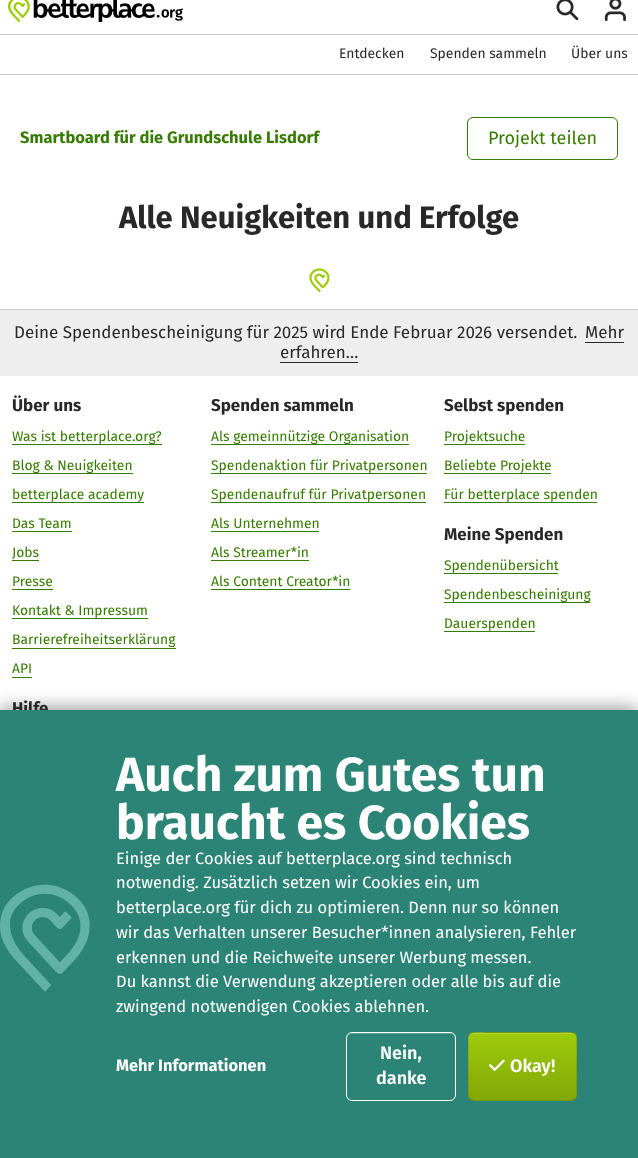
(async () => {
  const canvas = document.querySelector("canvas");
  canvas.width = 638;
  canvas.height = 1158;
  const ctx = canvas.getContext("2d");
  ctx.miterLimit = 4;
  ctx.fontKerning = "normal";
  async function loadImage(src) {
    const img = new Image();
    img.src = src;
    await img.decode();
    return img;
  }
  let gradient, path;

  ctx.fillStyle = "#ffffff";
  ctx.fillRect(0, 0, 638, 1158);
  ctx.fillStyle = "#cccccc";
  ctx.fillRect(0, 74, 638, 1);
  ctx.drawImage(await loadImage("img/1.png"), 8, 0, 175, 22);
  ctx.drawImage(await loadImage("img/2.png"), 556, 0, 23, 21);
  ctx.drawImage(await loadImage("img/3.png"), 604, 0, 22, 21);
  ctx.fillRect(0, 34, 638, 1);
  ctx.beginPath();
  ctx.roundRect(467.5, 117.5, 150, 42, 5.5);
  ctx.strokeStyle = "#357c00";
  ctx.stroke();
  ctx.drawImage(await loadImage("img/4.png"), 309, 268, 21, 25);
  for (const [x, y, w, h, color] of [
    [0, 309, 638, 1, "#cccccc"],
    [0, 310, 638, 66, "#eeeeee"],
    [585, 342, 39, 1, "#282828"],
    [280, 362, 78, 1, "#282828"],
    [12, 444, 150, 1, "#357c00"],
    [12, 473, 121, 1, "#357c00"],
    [12, 502, 132, 1, "#357c00"],
    [12, 531, 60, 1, "#357c00"],
    [12, 560, 27, 1, "#357c00"],
    [12, 589, 41, 1, "#357c00"],
    [12, 618, 136, 1, "#357c00"],
    [12, 648, 164, 1, "#357c00"],
    [12, 677, 20, 1, "#357c00"],
    [211, 444, 198, 1, "#357c00"],
    [211, 473, 216, 1, "#357c00"],
    [211, 502, 215, 1, "#357c00"],
    [211, 531, 108, 1, "#357c00"],
    [211, 560, 98, 1, "#357c00"],
    [211, 589, 139, 1, "#357c00"],
    [444, 444, 81, 1, "#357c00"],
    [444, 473, 107, 1, "#357c00"],
    [444, 502, 153, 1, "#357c00"],
    [444, 573, 114, 1, "#357c00"],
    [444, 602, 146, 1, "#357c00"],
    [444, 631, 91, 1, "#357c00"],
  ]) {
    ctx.fillStyle = color;
    ctx.fillRect(x, y, w, h);
  }
  ctx.fillStyle = "rgba(0, 0, 0, 0.5)";
  ctx.filter = "blur(10px)";
  ctx.beginPath();
  ctx.rect(0, 710, 638, 448);
  ctx.fill();
  ctx.filter = "none";
  ctx.font = "13.9px Fira Sans";
  ctx.fillStyle = "#282828";
  for (const [text, x, y] of [
    ["Entdecken", 339, 58],
    ["Spenden sammeln", 430, 58],
    ["Über uns", 571, 58],
  ]) {
    ctx.fillText(text, x, y);
  }
  ctx.font = "bold 16.5px Fira Sans";
  ctx.fillStyle = "#357c00";
  ctx.fillText("Smartboard für die Grundschule Lisdorf", 20, 143);
  ctx.font = "18px Fira Sans";
  ctx.fillText("Projekt teilen", 488, 144);
  ctx.font = "bold 31px Fira Sans";
  ctx.fillStyle = "#282828";
  ctx.fillText("Alle Neuigkeiten und Erfolge", 119, 228);
  ctx.font = "17px Fira Sans";
  for (const [text, x, y] of [
    ["Deine Spendenbescheinigung für 2025 wird Ende Februar 2026 versendet.", 14, 338],
    ["Mehr", 585, 338],
    ["erfahren…", 280, 358],
  ]) {
    ctx.fillText(text, x, y);
  }
  ctx.font = "bold 17px Fira Sans";
  ctx.fillText("Über uns", 12, 411);
  ctx.font = "13.9px Fira Sans";
  ctx.fillStyle = "#357c00";
  for (const [text, x, y] of [
    ["Was ist betterplace.org?", 12, 441],
    ["Blog & Neuigkeiten", 12, 470],
    ["betterplace academy", 12, 499],
    ["Das Team", 12, 528],
    ["Jobs", 12, 557],
    ["Presse", 12, 586],
    ["Kontakt & Impressum", 12, 615],
    ["Barrierefreiheitserklärung", 12, 644],
    ["API", 12, 673],
  ]) {
    ctx.fillText(text, x, y);
  }
  ctx.font = "bold 17px Fira Sans";
  ctx.fillStyle = "#282828";
  ctx.fillText("Spenden sammeln", 211, 411);
  ctx.font = "13.9px Fira Sans";
  ctx.fillStyle = "#357c00";
  for (const [text, x, y] of [
    ["Als gemeinnützige Organisation", 211, 441],
    ["Spendenaktion für Privatpersonen", 211, 470],
    ["Spendenaufruf für Privatpersonen", 211, 499],
    ["Als Unternehmen", 211, 528],
    ["Als Streamer*in", 211, 557],
    ["Als Content Creator*in", 211, 586],
  ]) {
    ctx.fillText(text, x, y);
  }
  ctx.font = "bold 17px Fira Sans";
  ctx.fillStyle = "#282828";
  ctx.fillText("Selbst spenden", 444, 411);
  ctx.font = "13.9px Fira Sans";
  ctx.fillStyle = "#357c00";
  for (const [text, x, y] of [
    ["Projektsuche", 444, 441],
    ["Beliebte Projekte", 444, 470],
    ["Für betterplace spenden", 444, 499],
  ]) {
    ctx.fillText(text, x, y);
  }
  ctx.font = "bold 17px Fira Sans";
  ctx.fillStyle = "#282828";
  ctx.fillText("Meine Spenden", 444, 540);
  ctx.font = "13.9px Fira Sans";
  ctx.fillStyle = "#357c00";
  for (const [text, x, y] of [
    ["Spendenübersicht", 444, 570],
    ["Spendenbescheinigung", 444, 599],
    ["Dauerspenden", 444, 628],
  ]) {
    ctx.fillText(text, x, y);
  }
  ctx.font = "bold 17px Fira Sans";
  ctx.fillStyle = "#282828";
  ctx.fillText("Hilfe", 12, 714);
  ctx.fillStyle = "#2b8475";
  ctx.fillRect(0, 710, 638, 448);
  ctx.drawImage(await loadImage("img/5.png"), 0, 884, 90, 108);
  ctx.font = "bold 48px Fira Sans";
  ctx.fillStyle = "#ffffff";
  ctx.fillText("Auch zum Gutes tun", 116, 791);
  ctx.fillText("braucht es Cookies", 116, 839);
  ctx.font = "16.5px Fira Sans";
  for (const [text, x, y] of [
    ["Einige der Cookies auf betterplace.org sind technisch", 116, 864],
    ["notwendig. Zusätzlich setzen wir Cookies ein, um", 116, 888],
    ["betterplace.org für dich zu optimieren. Denn nur so können", 116, 913],
    ["wir das Verhalten unserer Besucher*innen analysieren, Fehler", 116, 938],
    ["erkennen und die Reichweite unserer Werbung messen.", 116, 963],
    ["Du kannst die Verwendung akzeptieren oder alle bis auf die", 116, 987],
    ["zwingend notwendigen Cookies ablehnen.", 116, 1012],
  ]) {
    ctx.fillText(text, x, y);
  }
  ctx.font = "bold 16.5px Fira Sans";
  ctx.fillText("Mehr Informationen", 116, 1071);
  ctx.fillStyle = "#559d91";
  path = new Path2D("M352 1034H450C453 1034 455 1036 455 1039C455 1029 439 1033 434 1033H368C363 1033 347 1029 347 1039C347 1036 349 1034 352 1034Z");
  ctx.fill(path);
  ctx.beginPath();
  ctx.roundRect(346.5, 1032.5, 109, 68, 5.5);
  ctx.strokeStyle = "#ffffff";
  ctx.stroke();
  ctx.font = "600 18px Fira Sans";
  ctx.fillStyle = "#ffffff";
  ctx.fillText("Nein,", 380, 1059);
  ctx.fillText("danke", 376, 1084);
  ctx.save();
  ctx.beginPath();
  ctx.roundRect(468, 1032, 109, 69, 6);
  ctx.clip();
  gradient = ctx.createLinearGradient(523, 966, 523, 1033);
  gradient.addColorStop(0, "#9ecb0a");
  gradient.addColorStop(1, "#82a708");
  ctx.fillStyle = gradient;
  ctx.fillRect(468, 1032, 109, 1);
  gradient = ctx.createLinearGradient(523, 1033, 523, 1100);
  gradient.addColorStop(0, "#9ecb0a");
  gradient.addColorStop(1, "#82a708");
  ctx.fillStyle = gradient;
  ctx.fillRect(468, 1033, 109, 67);
  gradient = ctx.createLinearGradient(523, 1100, 523, 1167);
  gradient.addColorStop(0, "#9ecb0a");
  gradient.addColorStop(1, "#82a708");
  ctx.fillStyle = gradient;
  ctx.fillRect(468, 1100, 109, 1);
  ctx.restore();
  ctx.fillStyle = "rgba(255, 255, 255, 0.2)";
  path = new Path2D("M474 1034H571C574 1034 576 1036 576 1039C576 1029 560 1033 555 1033H490C485 1033 469 1029 469 1039C469 1036 471 1034 474 1034Z");
  ctx.fill(path);
  path = new Path2D("M575 1099L571.5 1100.5H473.5L470 1099");
  ctx.strokeStyle = "rgba(0, 0, 0, 0.25)";
  ctx.stroke(path);
  path = new Path2D("M470 1099C469 1098 468.5 1096.5 468.5 1095V1038C468.5 1036.5 469 1035 470 1034C471 1033 472.5 1032.5 474 1032.5H571C572.5 1032.5 574 1033 575 1034C576 1035 576.5 1036.5 576.5 1038V1095C576.5 1096.5 576 1098 575 1099");
  ctx.strokeStyle = "rgba(0, 0, 0, 0.1)";
  ctx.stroke(path);
  ctx.drawImage(await loadImage("img/6.png"), 489, 1059, 16, 12);
  ctx.fillStyle = "#ffffff";
  ctx.fillText("Okay!", 510, 1072);
})();
